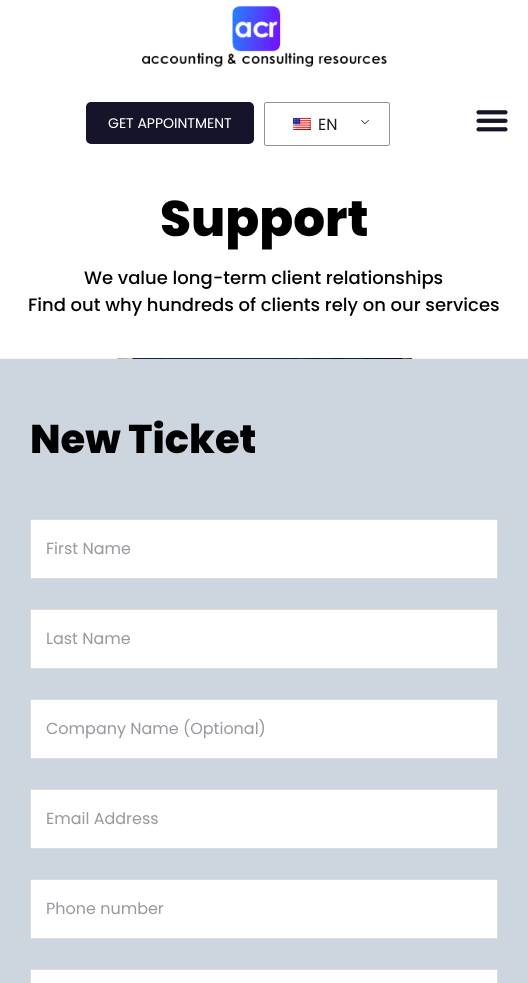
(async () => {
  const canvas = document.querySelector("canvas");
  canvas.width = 528;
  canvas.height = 983;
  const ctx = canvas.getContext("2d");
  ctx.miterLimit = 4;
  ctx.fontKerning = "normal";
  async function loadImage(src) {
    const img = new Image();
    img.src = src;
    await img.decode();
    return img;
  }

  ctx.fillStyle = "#ffffff";
  ctx.fillRect(0, 0, 528, 983);
  ctx.drawImage(await loadImage("img/1.png"), 142, 5, 245, 63);
  ctx.fillStyle = "#16142b";
  ctx.beginPath();
  ctx.roundRect(87, 103, 166, 40, 4);
  ctx.fill();
  ctx.strokeStyle = "#16142b";
  ctx.lineWidth = 2;
  ctx.stroke();
  ctx.drawImage(await loadImage("img/2.png"), 361, 119, 8, 5);
  ctx.beginPath();
  ctx.roundRect(264.5, 102.5, 125, 43, 1.5);
  ctx.strokeStyle = "#949494";
  ctx.lineWidth = 1;
  ctx.stroke();
  ctx.drawImage(await loadImage("img/3.png"), 293, 118, 18, 12);
  ctx.drawImage(await loadImage("img/4.png"), 476, 110, 32, 22);
  ctx.drawImage(await loadImage("img/5.png"), 0, 358, 528, 1);
  ctx.fillStyle = "#cdd5df";
  ctx.fillRect(0, 359, 528, 624);
  ctx.fillStyle = "#ffffff";
  ctx.beginPath();
  ctx.rect(30.5, 519.5, 467, 59);
  ctx.fill();
  ctx.strokeStyle = "#dadbdd";
  ctx.stroke();
  ctx.beginPath();
  ctx.rect(30.5, 609.5, 467, 59);
  ctx.fill();
  ctx.stroke();
  ctx.beginPath();
  ctx.rect(30.5, 699.5, 467, 59);
  ctx.fill();
  ctx.stroke();
  ctx.beginPath();
  ctx.rect(30.5, 789.5, 467, 59);
  ctx.fill();
  ctx.stroke();
  ctx.beginPath();
  ctx.rect(30.5, 879.5, 467, 59);
  ctx.fill();
  ctx.stroke();
  ctx.beginPath();
  ctx.rect(30.5, 969.5, 467, 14);
  ctx.fill();
  ctx.stroke();
  ctx.font = "14px Poppins";
  ctx.fillText("GET APPOINTMENT", 108, 128);
  ctx.font = "16px Poppins";
  ctx.fillStyle = "#1e1e1e";
  ctx.fillText("EN", 318, 130);
  ctx.font = "800 50px Poppins";
  ctx.fillStyle = "#000000";
  ctx.fillText("Support", 160, 236);
  ctx.font = "500 18px Poppins";
  ctx.fillText("We value long-term client relationships", 84, 284);
  ctx.fillText("Find out why hundreds of clients rely on our services", 28, 311);
  ctx.font = "800 40px Poppins";
  ctx.fillText("New Ticket", 30, 453);
  ctx.font = "16px Poppins";
  ctx.fillStyle = "#989a9f";
  for (const [text, x, y] of [
    ["First Name", 46, 554],
    ["Last Name", 46, 644],
    ["Company Name (Optional)", 46, 734],
    ["Email Address", 46, 824],
    ["Phone number", 46, 914],
  ]) {
    ctx.fillText(text, x, y);
  }
})();
